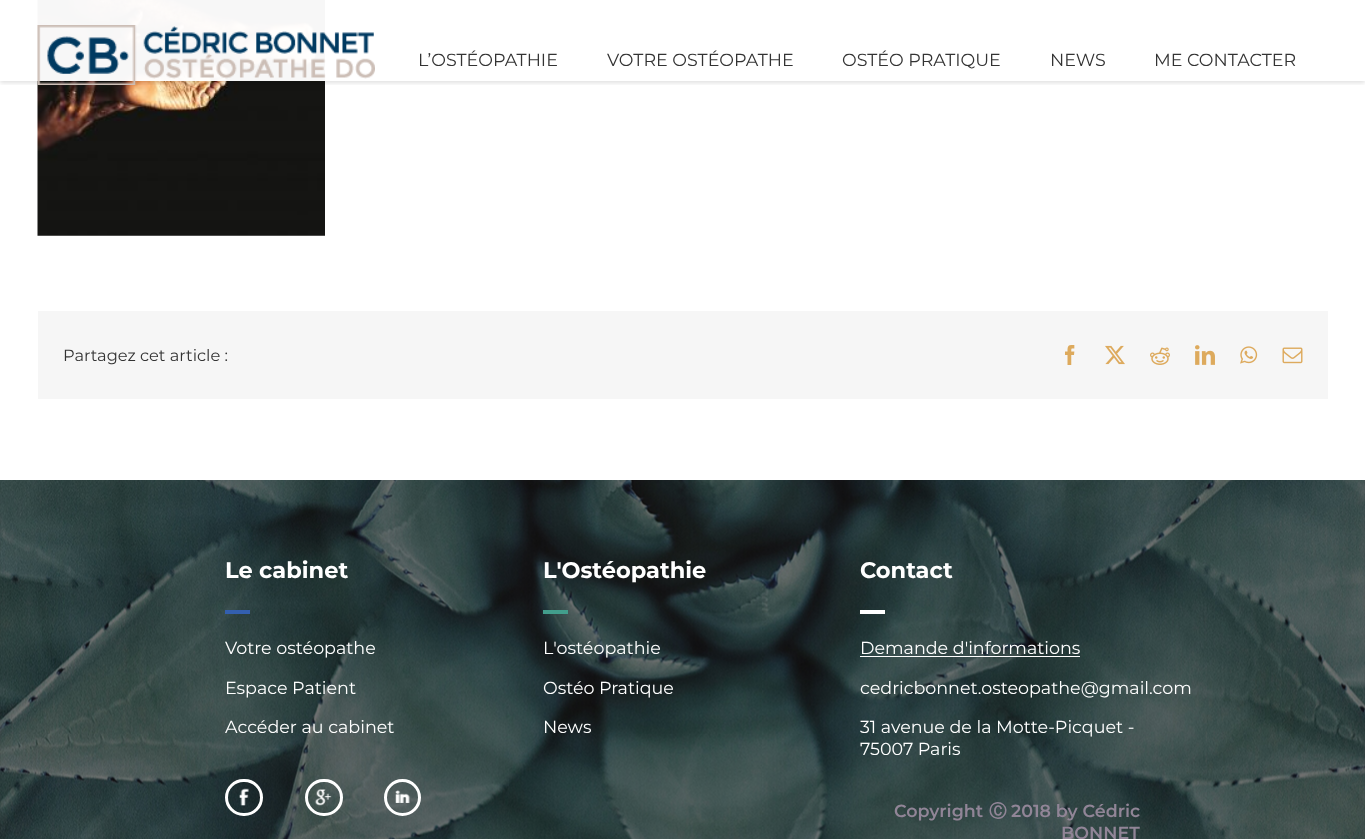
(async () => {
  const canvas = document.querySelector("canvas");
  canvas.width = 1365;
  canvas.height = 839;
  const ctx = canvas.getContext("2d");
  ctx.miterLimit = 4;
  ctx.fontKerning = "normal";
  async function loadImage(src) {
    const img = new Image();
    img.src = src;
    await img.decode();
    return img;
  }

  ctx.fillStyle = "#ffffff";
  ctx.fillRect(0, 0, 1365, 839);
  ctx.drawImage(await loadImage("img/2.png"), 37, 0, 288, 236);
  ctx.save();
  ctx.beginPath();
  ctx.rect(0, 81, 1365, 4);
  ctx.clip();
  ctx.fillStyle = "rgba(0, 0, 0, 0.12)";
  ctx.filter = "blur(2px)";
  ctx.beginPath();
  ctx.rect(0, 1, 1365, 82);
  ctx.fill();
  ctx.filter = "none";
  ctx.restore();
  ctx.fillStyle = "rgba(255, 255, 255, 0.97)";
  ctx.fillRect(37, 0, 288, 81);
  ctx.drawImage(await loadImage("img/1.png"), 37, 25, 338, 60);
  ctx.fillStyle = "#f6f6f6";
  ctx.fillRect(38, 311, 1290, 88);
  ctx.drawImage(await loadImage("img/3.png"), 1065, 345, 10, 20);
  ctx.drawImage(await loadImage("img/4.png"), 1105, 345, 20, 20);
  ctx.drawImage(await loadImage("img/5.png"), 1150, 347, 20, 18);
  ctx.drawImage(await loadImage("img/6.png"), 1195, 345, 20, 20);
  ctx.drawImage(await loadImage("img/7.png"), 1240, 346, 18, 18);
  ctx.drawImage(await loadImage("img/8.png"), 1282, 347, 21, 17);
  ctx.drawImage(await loadImage("img/9.png"), 0, 480, 1365, 359);
  ctx.fillStyle = "#335faf";
  ctx.fillRect(225, 610, 25, 4);
  ctx.beginPath();
  ctx.roundRect(226.5, 780.5, 35, 34, 17);
  ctx.strokeStyle = "#ffffff";
  ctx.lineWidth = 3;
  ctx.stroke();
  ctx.drawImage(await loadImage("img/10.png"), 239, 788, 10, 18);
  ctx.beginPath();
  ctx.roundRect(306.5, 780.5, 35, 34, 17);
  ctx.stroke();
  ctx.drawImage(await loadImage("img/11.png"), 314, 789, 18, 17);
  ctx.beginPath();
  ctx.arc(402.5, 797.5, 17, 0, Math.PI * 2);
  ctx.stroke();
  ctx.drawImage(await loadImage("img/12.png"), 395, 790, 15, 13);
  for (const [x, y, w, h, color] of [
    [543, 610, 25, 4, "#429e8c"],
    [860, 610, 25, 4, "#ffffff"],
    [860, 656, 220, 1, "#ffffff"],
  ]) {
    ctx.fillStyle = color;
    ctx.fillRect(x, y, w, h);
  }
  ctx.font = "17.5px Montserrat";
  ctx.fillStyle = "#333333";
  for (const [text, x, y] of [
    ["L’OSTÉOPATHIE", 418, 66],
    ["VOTRE OSTÉOPATHE", 607, 66],
    ["OSTÉO PRATIQUE", 842, 66],
    ["NEWS", 1050, 66],
    ["ME CONTACTER", 1154, 66],
  ]) {
    ctx.fillText(text, x, y);
  }
  ctx.font = "16.25px Montserrat";
  ctx.fillText("Partagez cet article :", 63, 361);
  ctx.font = "bold 22.5px Montserrat";
  ctx.fillStyle = "#ffffff";
  ctx.fillText("Le cabinet", 225, 578);
  ctx.font = "17.5px Montserrat";
  for (const [text, x, y] of [
    ["Votre ostéopathe", 225, 654],
    ["Espace Patient", 225, 694],
    ["Accéder au cabinet", 225, 733],
  ]) {
    ctx.fillText(text, x, y);
  }
  ctx.font = "bold 22.5px Montserrat";
  ctx.fillText("L'Ostéopathie", 543, 578);
  ctx.font = "17.5px Montserrat";
  for (const [text, x, y] of [
    ["L'ostéopathie", 543, 654],
    ["Ostéo Pratique", 543, 694],
    ["News", 543, 733],
  ]) {
    ctx.fillText(text, x, y);
  }
  ctx.font = "bold 22.5px Montserrat";
  ctx.fillText("Contact", 860, 578);
  ctx.font = "17.5px Montserrat";
  for (const [text, x, y] of [
    ["Demande d'informations", 860, 654],
    ["cedricbonnet.osteopathe@gmail.com", 860, 694],
    ["31 avenue de la Motte-Picquet -", 860, 733],
    ["75007 Paris", 860, 755],
  ]) {
    ctx.fillText(text, x, y);
  }
  ctx.font = "600 17.5px Montserrat";
  ctx.fillStyle = "#918597";
  ctx.fillText("Copyright", 894, 817);
  ctx.font = "bold 17.5px WenQuanYi Zen Hei";
  ctx.fillText("Ⓒ", 989, 817);
  ctx.font = "600 17.5px Montserrat";
  ctx.fillText("2018 by Cédric", 1011, 817);
  ctx.fillText("BONNET", 1061, 839);
})();
